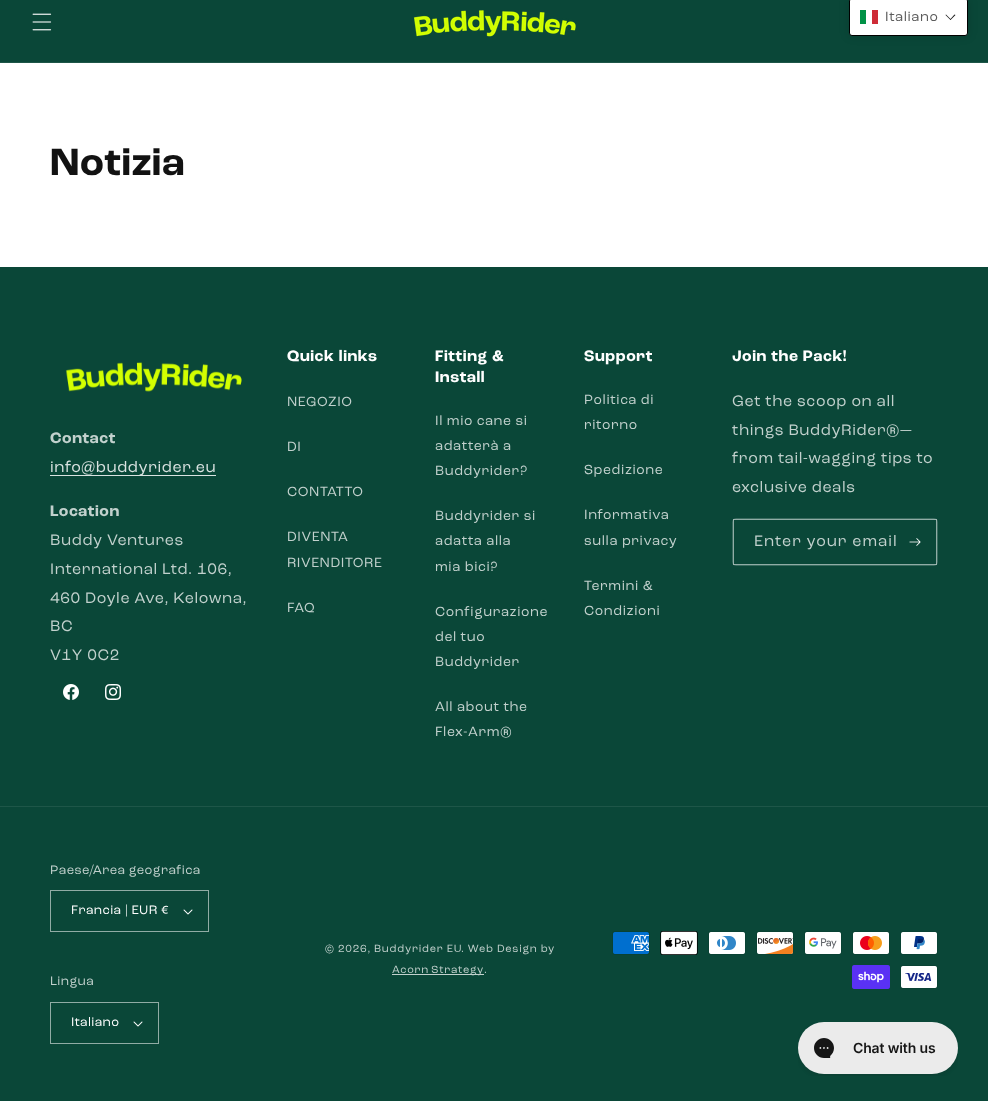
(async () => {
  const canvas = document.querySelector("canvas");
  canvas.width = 988;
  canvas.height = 1101;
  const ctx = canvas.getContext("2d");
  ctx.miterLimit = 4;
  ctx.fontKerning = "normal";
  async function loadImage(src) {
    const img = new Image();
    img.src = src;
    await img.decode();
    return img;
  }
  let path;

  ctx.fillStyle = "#ffffff";
  ctx.fillRect(0, 0, 988, 1101);
  ctx.fillStyle = "#0a4738";
  ctx.fillRect(0, 0, 988, 62);
  ctx.fillStyle = "#1e5648";
  ctx.fillRect(0, 62, 988, 1);
  ctx.drawImage(await loadImage("img/1.png"), 32, 13, 20, 18);
  ctx.drawImage(await loadImage("img/2.png"), 413, 10, 163, 27);
  ctx.fillStyle = "rgba(0, 0, 0, 0.15)";
  ctx.filter = "blur(5px)";
  ctx.beginPath();
  ctx.roundRect(849, -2, 119, 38, 3);
  ctx.fill();
  ctx.filter = "none";
  ctx.fillStyle = "#ffffff";
  ctx.beginPath();
  ctx.roundRect(849.5, -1.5, 118, 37, 2.5);
  ctx.fill();
  ctx.strokeStyle = "#000000";
  ctx.stroke();
  ctx.fillStyle = "#009246";
  ctx.fillRect(860, 10, 6, 14);
  ctx.fillStyle = "#ce2b37";
  ctx.fillRect(872, 10, 6, 14);
  ctx.fillStyle = "#1a1a1a";
  path = new Path2D("M954.5 14.5L955.5 15L950.5 20L950 19.5Z");
  ctx.fill(path);
  path = new Path2D("M946 14.5L951 19.5L950.5 20L945.5 15Z");
  ctx.fill(path);
  ctx.fillStyle = "#0a4738";
  ctx.fillRect(0, 267, 988, 834);
  ctx.drawImage(await loadImage("img/3.png"), 65, 362, 177, 30);
  ctx.fillStyle = "#dae3e1";
  ctx.fillRect(50, 475, 166, 1);
  ctx.drawImage(await loadImage("img/4.png"), 63, 684, 16, 16);
  ctx.drawImage(await loadImage("img/5.png"), 105, 684, 16, 16);
  ctx.beginPath();
  ctx.roundRect(732.5, 518.5, 205, 47, 3.5);
  ctx.strokeStyle = "#3b6c60";
  ctx.stroke();
  ctx.drawImage(await loadImage("img/6.png"), 909, 538, 12, 8);
  ctx.strokeStyle = "rgba(255, 255, 255, 0.55)";
  ctx.strokeRect(733.5, 519.5, 203, 45);
  ctx.fillStyle = "#1e5648";
  ctx.fillRect(0, 806, 988, 1);
  ctx.drawImage(await loadImage("img/7.png"), 183, 909, 10, 6);
  ctx.strokeStyle = "#91aca5";
  ctx.strokeRect(50.5, 890.5, 158, 41);
  ctx.drawImage(await loadImage("img/7.png"), 133, 1021, 10, 6);
  ctx.strokeRect(50.5, 1002.5, 108, 41);
  ctx.fillStyle = "#c2d1cd";
  ctx.fillRect(392, 974, 92, 1);
  ctx.drawImage(await loadImage("img/8.png"), 612, 931, 38, 24);
  ctx.drawImage(await loadImage("img/9.png"), 660, 931, 38, 24);
  ctx.drawImage(await loadImage("img/10.png"), 708, 931, 38, 24);
  ctx.drawImage(await loadImage("img/11.png"), 756, 931, 38, 24);
  ctx.drawImage(await loadImage("img/12.png"), 804, 931, 38, 24);
  ctx.drawImage(await loadImage("img/13.png"), 852, 931, 38, 24);
  ctx.drawImage(await loadImage("img/14.png"), 900, 931, 38, 24);
  ctx.drawImage(await loadImage("img/15.png"), 852, 965, 38, 24);
  ctx.drawImage(await loadImage("img/16.png"), 900, 965, 38, 24);
  ctx.drawImage(await loadImage("img/17.png"), 798, 1022, 160, 54);
  ctx.letterSpacing = "0.6px";
  ctx.font = "14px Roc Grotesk";
  ctx.fillStyle = "#5c5c5c";
  ctx.fillText("Italiano", 885, 21);
  ctx.font = "bold 40px Roc Grotesk";
  ctx.fillStyle = "#121212";
  ctx.fillText("Notizia", 50, 175);
  ctx.font = "bold 16px Roc Grotesk";
  ctx.fillStyle = "#c2d1cd";
  ctx.fillText("Contact", 50, 443);
  ctx.font = "16px Roc Grotesk";
  ctx.fillStyle = "#dae3e1";
  ctx.fillText("info@buddyrider.eu", 50, 472);
  ctx.font = "bold 16px Roc Grotesk";
  ctx.fillStyle = "#c2d1cd";
  ctx.fillText("Location", 50, 516);
  ctx.font = "16px Roc Grotesk";
  for (const [text, x, y] of [
    ["Buddy Ventures", 50, 545],
    ["International Ltd. 106,", 50, 574],
    ["460 Doyle Ave, Kelowna,", 50, 603],
    ["BC", 50, 631],
    ["V1Y 0C2", 50, 660],
  ]) {
    ctx.fillText(text, x, y);
  }
  ctx.font = "bold 16px Roc Grotesk";
  ctx.fillStyle = "#ffffff";
  ctx.fillText("Quick links", 287, 361);
  ctx.font = "14px Roc Grotesk";
  ctx.fillStyle = "#c2d1cd";
  for (const [text, x, y] of [
    ["NEGOZIO", 287, 406],
    ["DI", 287, 451],
    ["CONTATTO", 287, 496],
    ["DIVENTA", 287, 541],
    ["RIVENDITORE", 287, 567],
    ["FAQ", 287, 612],
  ]) {
    ctx.fillText(text, x, y);
  }
  ctx.font = "bold 16px Roc Grotesk";
  ctx.fillStyle = "#ffffff";
  ctx.fillText("Fitting &", 435, 361);
  ctx.fillText("Install", 435, 382);
  ctx.font = "14px Roc Grotesk";
  ctx.fillStyle = "#c2d1cd";
  for (const [text, x, y] of [
    ["Il mio cane si", 435, 425],
    ["adatterà a", 435, 450],
    ["Buddyrider?", 435, 475],
    ["Buddyrider si", 435, 520],
    ["adatta alla", 435, 545],
    ["mia bici?", 435, 571],
    ["Configurazione", 435, 616],
    ["del tuo", 435, 641],
    ["Buddyrider", 435, 666],
    ["All about the", 435, 711],
    ["Flex-Arm®", 435, 736],
  ]) {
    ctx.fillText(text, x, y);
  }
  ctx.font = "bold 16px Roc Grotesk";
  ctx.fillStyle = "#ffffff";
  ctx.fillText("Support", 584, 361);
  ctx.font = "14px Roc Grotesk";
  ctx.fillStyle = "#c2d1cd";
  for (const [text, x, y] of [
    ["Politica di", 584, 404],
    ["ritorno", 584, 429],
    ["Spedizione", 584, 474],
    ["Informativa", 584, 519],
    ["sulla privacy", 584, 545],
    ["Termini &", 584, 590],
    ["Condizioni", 584, 615],
  ]) {
    ctx.fillText(text, x, y);
  }
  ctx.font = "bold 16px Roc Grotesk";
  ctx.fillStyle = "#ffffff";
  ctx.fillText("Join the Pack!", 732, 361);
  ctx.font = "16px Roc Grotesk";
  ctx.fillStyle = "#c2d1cd";
  for (const [text, x, y] of [
    ["Get the scoop on all", 732, 406],
    ["things BuddyRider®—", 732, 435],
    ["from tail-wagging tips to", 732, 463],
    ["exclusive deals", 732, 492],
  ]) {
    ctx.fillText(text, x, y);
  }
  ctx.letterSpacing = "1px";
  ctx.fillText("Enter your email", 754, 546);
  ctx.letterSpacing = "0.4px";
  ctx.font = "13px Roc Grotesk";
  ctx.fillText("Paese/Area geografica", 50, 874);
  ctx.fillStyle = "#ffffff";
  ctx.fillText("Francia | EUR €", 71, 914);
  ctx.fillStyle = "#c2d1cd";
  ctx.fillText("Lingua", 50, 985);
  ctx.fillStyle = "#ffffff";
  ctx.fillText("Italiano", 71, 1026);
  ctx.letterSpacing = "0.75px";
  ctx.font = "11px Roc Grotesk";
  ctx.fillStyle = "#c2d1cd";
  for (const [text, x, y] of [
    ["© 2026,", 325, 952],
    ["Buddyrider EU", 374, 952],
    [". Web Design by", 461, 952],
  ]) {
    ctx.fillText(text, x, y);
  }
  ctx.wordSpacing = "-1px";
  ctx.fillText("Acorn Strategy", 392, 973);
  ctx.wordSpacing = "0px";
  ctx.fillText(".", 484, 973);
})();
